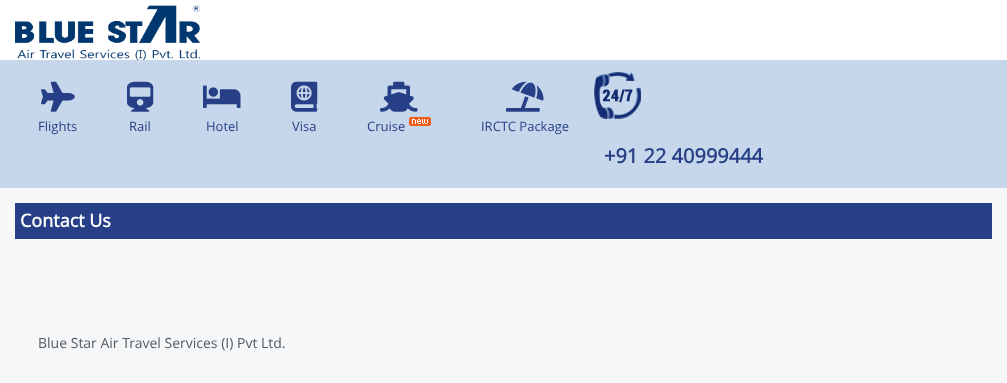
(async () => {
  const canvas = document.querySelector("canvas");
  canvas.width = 1007;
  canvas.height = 383;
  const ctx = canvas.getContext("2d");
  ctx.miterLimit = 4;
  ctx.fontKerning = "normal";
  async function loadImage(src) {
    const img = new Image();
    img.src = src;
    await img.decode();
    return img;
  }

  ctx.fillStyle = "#ffffff";
  ctx.fillRect(0, 0, 1007, 383);
  ctx.drawImage(await loadImage("img/1.png"), 15, 5, 185, 55);
  ctx.fillStyle = "#c7d7eb";
  ctx.fillRect(0, 60, 1007, 128);
  ctx.drawImage(await loadImage("img/2.png"), 41, 81, 34, 31);
  ctx.drawImage(await loadImage("img/3.png"), 127, 81, 27, 31);
  ctx.drawImage(await loadImage("img/4.png"), 203, 85, 38, 23);
  ctx.drawImage(await loadImage("img/5.png"), 291, 81, 27, 31);
  ctx.drawImage(await loadImage("img/6.png"), 380, 81, 38, 31);
  ctx.drawImage(await loadImage("img/7.png"), 409, 117, 22, 9);
  ctx.drawImage(await loadImage("img/8.png"), 506, 81, 38, 31);
  ctx.drawImage(await loadImage("img/9.png"), 594, 72, 47, 47);
  ctx.fillStyle = "#f6f7f8";
  ctx.fillRect(0, 188, 1007, 195);
  ctx.fillStyle = "#273f87";
  ctx.fillRect(15, 203, 977, 36);
  ctx.font = "13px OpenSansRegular";
  for (const [text, x, y] of [
    ["Flights", 38, 131],
    ["Rail", 129, 131],
    ["Hotel", 206, 131],
    ["Visa", 292, 131],
    ["Cruise", 367, 131],
    ["IRCTC Package", 481, 131],
  ]) {
    ctx.fillText(text, x, y);
  }
  ctx.font = "bold 20px OpenSansRegular";
  ctx.fillText("+91 22 40999444", 604, 163);
  ctx.font = "bold 18px OpenSansRegular";
  ctx.fillStyle = "#ffffff";
  ctx.fillText("Contact Us", 20, 227);
  ctx.font = "14px OpenSansRegular";
  ctx.fillStyle = "#535b61";
  ctx.fillText("Blue Star Air Travel Services (I) Pvt Ltd.", 38, 348);
})();
